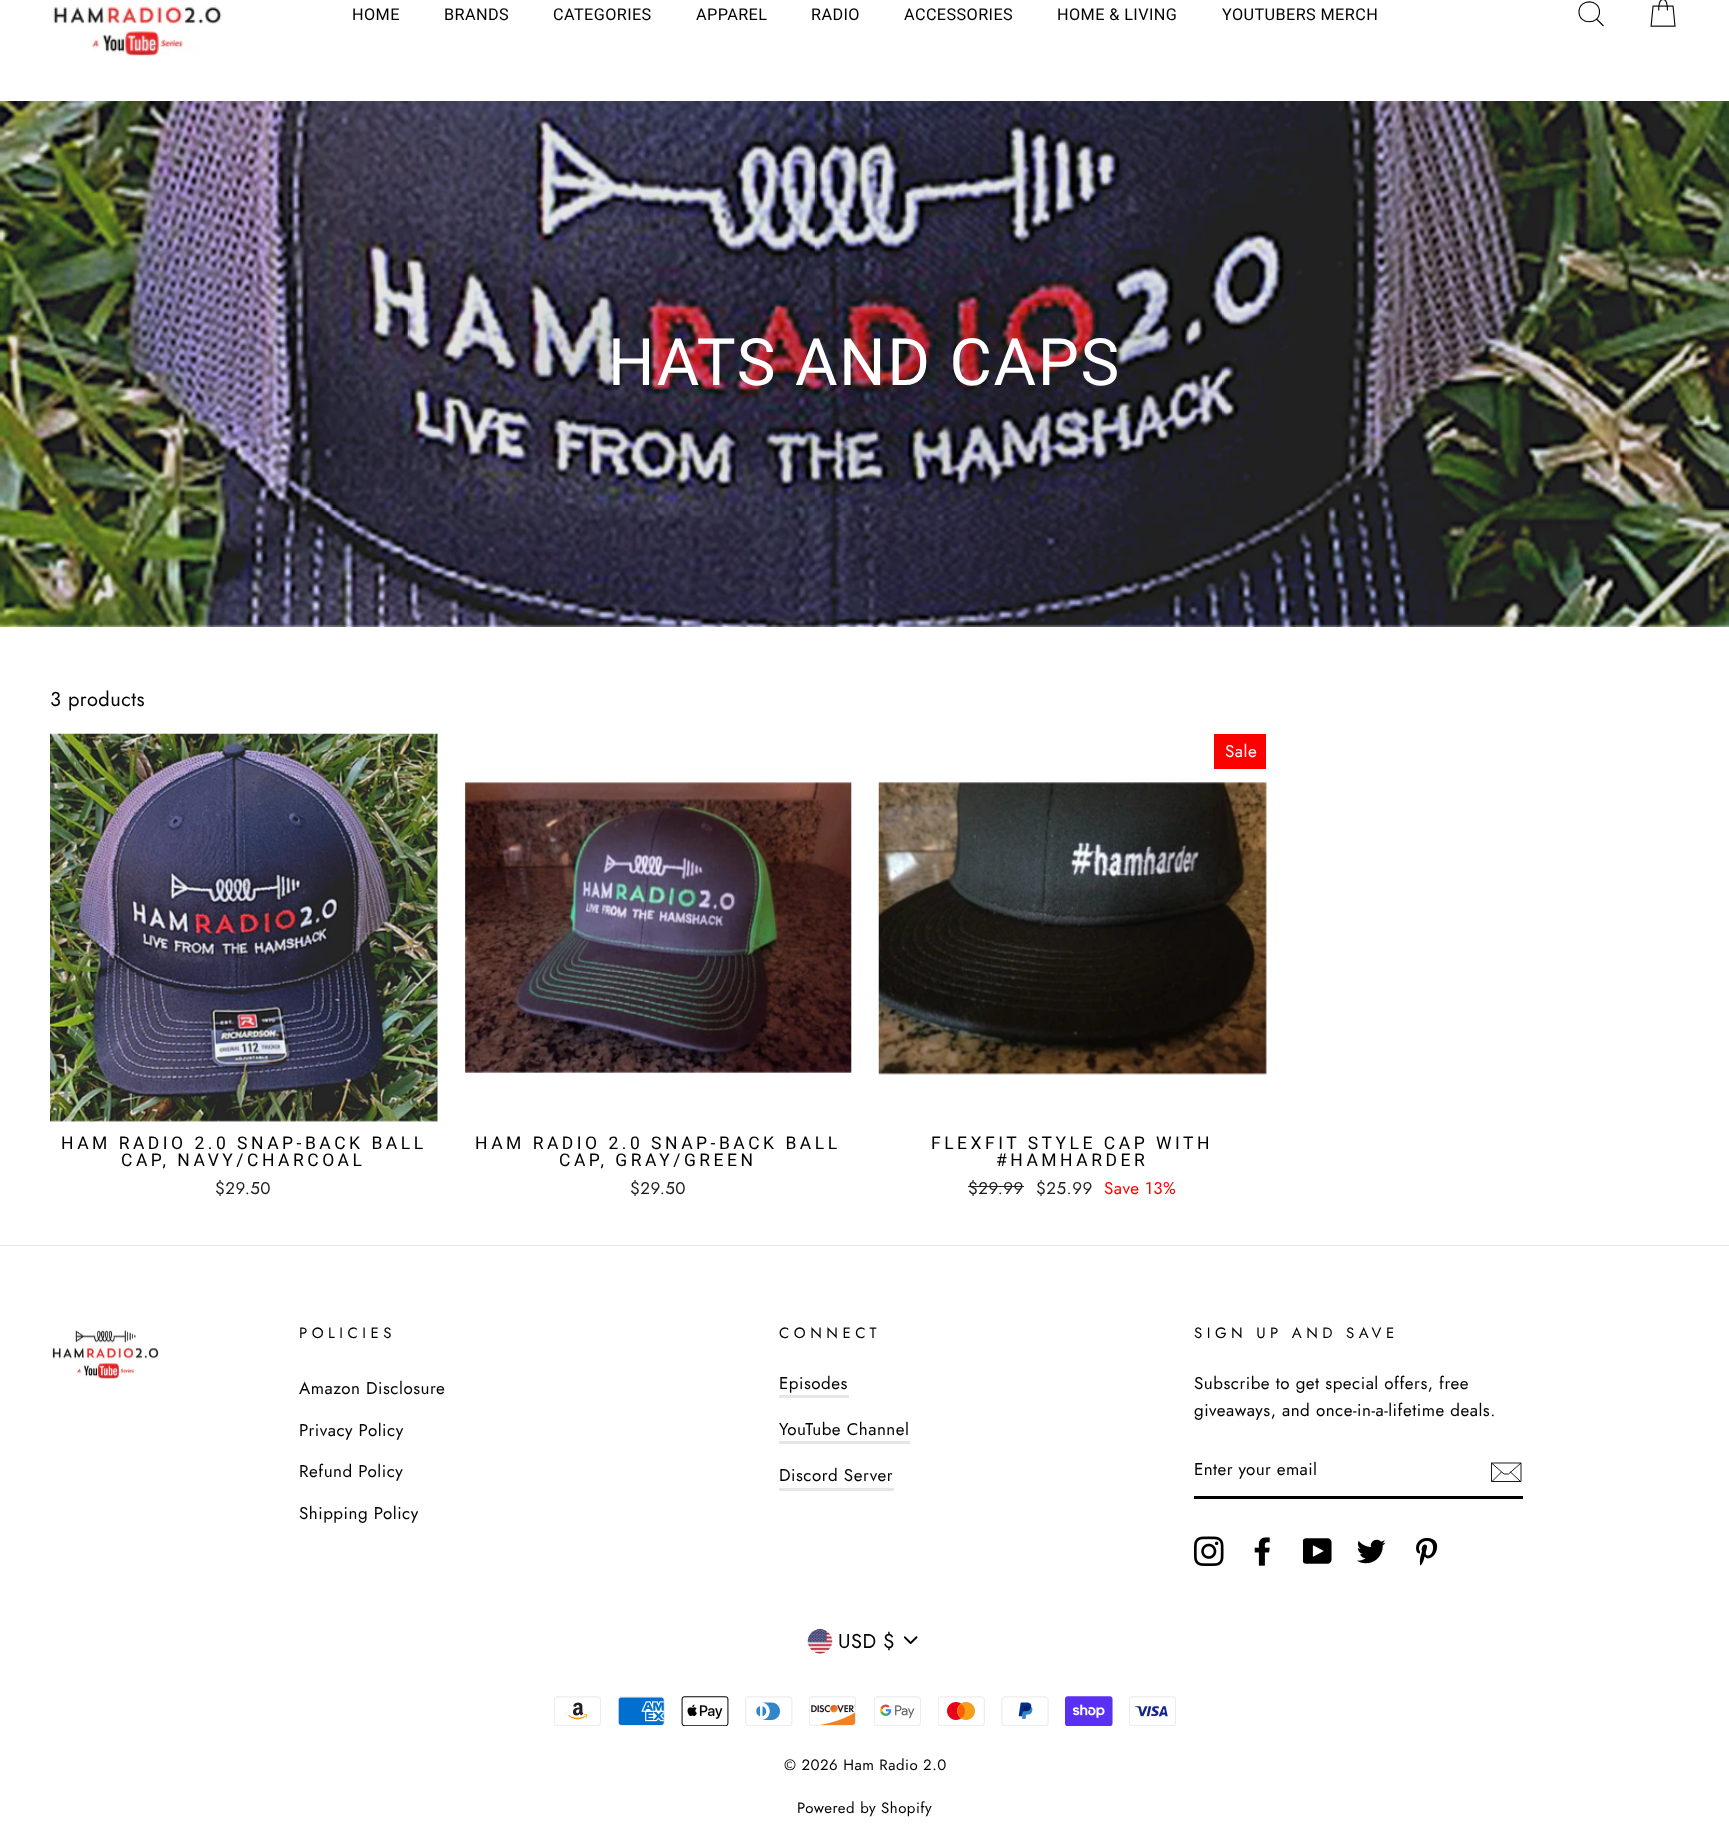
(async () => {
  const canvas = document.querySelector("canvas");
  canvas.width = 1729;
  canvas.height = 1824;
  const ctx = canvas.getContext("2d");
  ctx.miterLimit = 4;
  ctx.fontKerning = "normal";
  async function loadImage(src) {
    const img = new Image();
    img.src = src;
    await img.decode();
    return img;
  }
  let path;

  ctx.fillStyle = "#ffffff";
  ctx.fillRect(0, 0, 1729, 1824);
  ctx.drawImage(await loadImage("img/1.png"), 53, 5, 172, 52);
  path = new Path2D("M1599.5 12C1599.5 25 1579 25 1579 12C1579-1.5 1599.5-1.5 1599.5 12ZM1603.5 26L1596.5 19");
  ctx.strokeStyle = "#000000";
  ctx.lineWidth = 1.1;
  ctx.stroke(path);
  ctx.drawImage(await loadImage("img/2.png"), 1650, 0, 26, 27);
  ctx.drawImage(await loadImage("img/3.png"), 0, 101, 1729, 526);
  ctx.drawImage(await loadImage("img/4.png"), 50, 733, 388, 389);
  ctx.drawImage(await loadImage("img/5.png"), 465, 782, 387, 291);
  ctx.fillStyle = "#ff0000";
  ctx.fillRect(1214, 734, 52, 35);
  ctx.drawImage(await loadImage("img/6.png"), 878, 782, 389, 293);
  ctx.fillStyle = "#1c1d1d";
  ctx.fillRect(968, 1186, 56, 1);
  ctx.fillStyle = "#e8e8e1";
  ctx.fillRect(0, 1245, 1729, 1);
  ctx.drawImage(await loadImage("img/7.png"), 52, 1330, 107, 50);
  for (const [x, y, w, h, color] of [
    [779, 1395, 70, 3, "#e6e6e6"],
    [779, 1441, 131, 3, "#e6e6e6"],
    [779, 1488, 115, 3, "#e6e6e6"],
    [1194, 1496, 329, 3, "#000000"],
  ]) {
    ctx.fillStyle = color;
    ctx.fillRect(x, y, w, h);
  }
  path = new Path2D("M1521 1481.5H1491.5V1463H1521ZM1491.5 1463L1504 1474H1508.5L1521 1463M1501.5 1472L1492 1481.5M1520.5 1481.5L1510.5 1472");
  ctx.lineWidth = 0.9;
  ctx.stroke(path);
  ctx.drawImage(await loadImage("img/8.png"), 1194, 1536, 30, 30);
  ctx.drawImage(await loadImage("img/9.png"), 1254, 1537, 16, 29);
  ctx.drawImage(await loadImage("img/10.png"), 1303, 1538, 29, 26);
  ctx.drawImage(await loadImage("img/11.png"), 1357, 1539, 29, 25);
  ctx.drawImage(await loadImage("img/12.png"), 1416, 1537, 22, 29);
  ctx.drawImage(await loadImage("img/13.png"), 904, 1636, 14, 8);
  ctx.drawImage(await loadImage("img/14.png"), 807, 1628, 26, 26);
  ctx.drawImage(await loadImage("img/15.png"), 554, 1696, 47, 30);
  ctx.drawImage(await loadImage("img/16.png"), 618, 1696, 47, 30);
  ctx.drawImage(await loadImage("img/17.png"), 681, 1696, 48, 30);
  ctx.drawImage(await loadImage("img/18.png"), 745, 1696, 48, 30);
  ctx.drawImage(await loadImage("img/19.png"), 809, 1696, 47, 30);
  ctx.drawImage(await loadImage("img/20.png"), 874, 1696, 47, 30);
  ctx.drawImage(await loadImage("img/21.png"), 938, 1696, 47, 30);
  ctx.drawImage(await loadImage("img/22.png"), 1001, 1696, 48, 30);
  ctx.drawImage(await loadImage("img/23.png"), 1065, 1696, 48, 30);
  ctx.drawImage(await loadImage("img/24.png"), 1129, 1696, 47, 30);
  ctx.letterSpacing = "0.4px";
  ctx.font = "16.25px Roboto";
  for (const [text, x, y] of [
    ["HOME", 352, 20],
    ["BRANDS", 444, 20],
    ["CATEGORIES", 553, 20],
    ["APPAREL", 696, 20],
    ["RADIO", 811, 20],
    ["ACCESSORIES", 904, 20],
    ["HOME & LIVING", 1057, 20],
    ["YOUTUBERS MERCH", 1222, 20],
  ]) {
    ctx.fillText(text, x, y);
  }
  ctx.letterSpacing = "1.6px";
  ctx.font = "65.25px Roboto";
  ctx.fillStyle = "#ffffff";
  ctx.fillText("HATS AND CAPS", 608, 385);
  ctx.letterSpacing = "0.5px";
  ctx.font = "20px Jost";
  ctx.fillStyle = "#000000";
  ctx.fillText("3 products", 50, 706);
  ctx.letterSpacing = "3.5px";
  ctx.font = "17.5px Roboto";
  ctx.fillText("HAM RADIO 2.0 SNAP-BACK BALL", 61, 1149);
  ctx.fillText("CAP, NAVY/CHARCOAL", 121, 1166);
  ctx.letterSpacing = "0.5px";
  ctx.font = "17px Jost";
  ctx.fillStyle = "#1c1d1d";
  ctx.fillText("$29.50", 215, 1194);
  ctx.letterSpacing = "3.5px";
  ctx.font = "17.5px Roboto";
  ctx.fillStyle = "#000000";
  ctx.fillText("HAM RADIO 2.0 SNAP-BACK BALL", 475, 1149);
  ctx.fillText("CAP, GRAY/GREEN", 559, 1166);
  ctx.letterSpacing = "0.5px";
  ctx.font = "17px Jost";
  ctx.fillStyle = "#1c1d1d";
  ctx.fillText("$29.50", 630, 1194);
  ctx.fillStyle = "#ffffff";
  ctx.fillText("Sale", 1225, 757);
  ctx.letterSpacing = "3.5px";
  ctx.font = "17.5px Roboto";
  ctx.fillStyle = "#000000";
  ctx.fillText("FLEXFIT STYLE CAP WITH", 931, 1149);
  ctx.fillText("#HAMHARDER", 996, 1166);
  ctx.letterSpacing = "0.5px";
  ctx.font = "17px Jost";
  ctx.fillStyle = "#1c1d1d";
  ctx.fillText("$29.99", 968, 1194);
  ctx.fillText("$25.99", 1036, 1194);
  ctx.fillStyle = "#ff0000";
  ctx.fillText("Save 13%", 1104, 1194);
  ctx.letterSpacing = "4.5px";
  ctx.font = "15px Jost";
  ctx.fillStyle = "#000000";
  ctx.fillText("POLICIES", 299, 1338);
  ctx.letterSpacing = "0.5px";
  ctx.font = "17px Jost";
  for (const [text, x, y] of [
    ["Amazon Disclosure", 299, 1394],
    ["Privacy Policy", 299, 1436],
    ["Refund Policy", 299, 1477],
    ["Shipping Policy", 299, 1519],
  ]) {
    ctx.fillText(text, x, y);
  }
  ctx.letterSpacing = "4.5px";
  ctx.font = "15px Jost";
  ctx.fillText("CONNECT", 779, 1338);
  ctx.letterSpacing = "0.5px";
  ctx.font = "17px Jost";
  for (const [text, x, y] of [
    ["Episodes", 779, 1389],
    ["YouTube Channel", 779, 1435],
    ["Discord Server", 779, 1481],
  ]) {
    ctx.fillText(text, x, y);
  }
  ctx.letterSpacing = "4.5px";
  ctx.font = "15px Jost";
  ctx.fillText("SIGN UP AND SAVE", 1194, 1338);
  ctx.letterSpacing = "0.5px";
  ctx.font = "17px Jost";
  ctx.fillText("Subscribe to get special offers, free", 1194, 1389);
  ctx.fillText("giveaways, and once-in-a-lifetime deals.", 1194, 1416);
  ctx.letterSpacing = "0.4px";
  ctx.fillText("Enter your email", 1194, 1475);
  ctx.letterSpacing = "0.5px";
  ctx.font = "20px Jost";
  ctx.fillText("USD $", 838, 1648);
  ctx.font = "15px Jost";
  ctx.fillText("© 2026 Ham Radio 2.0", 784, 1770);
  ctx.fillText("Powered by Shopify", 797, 1813);
})();
